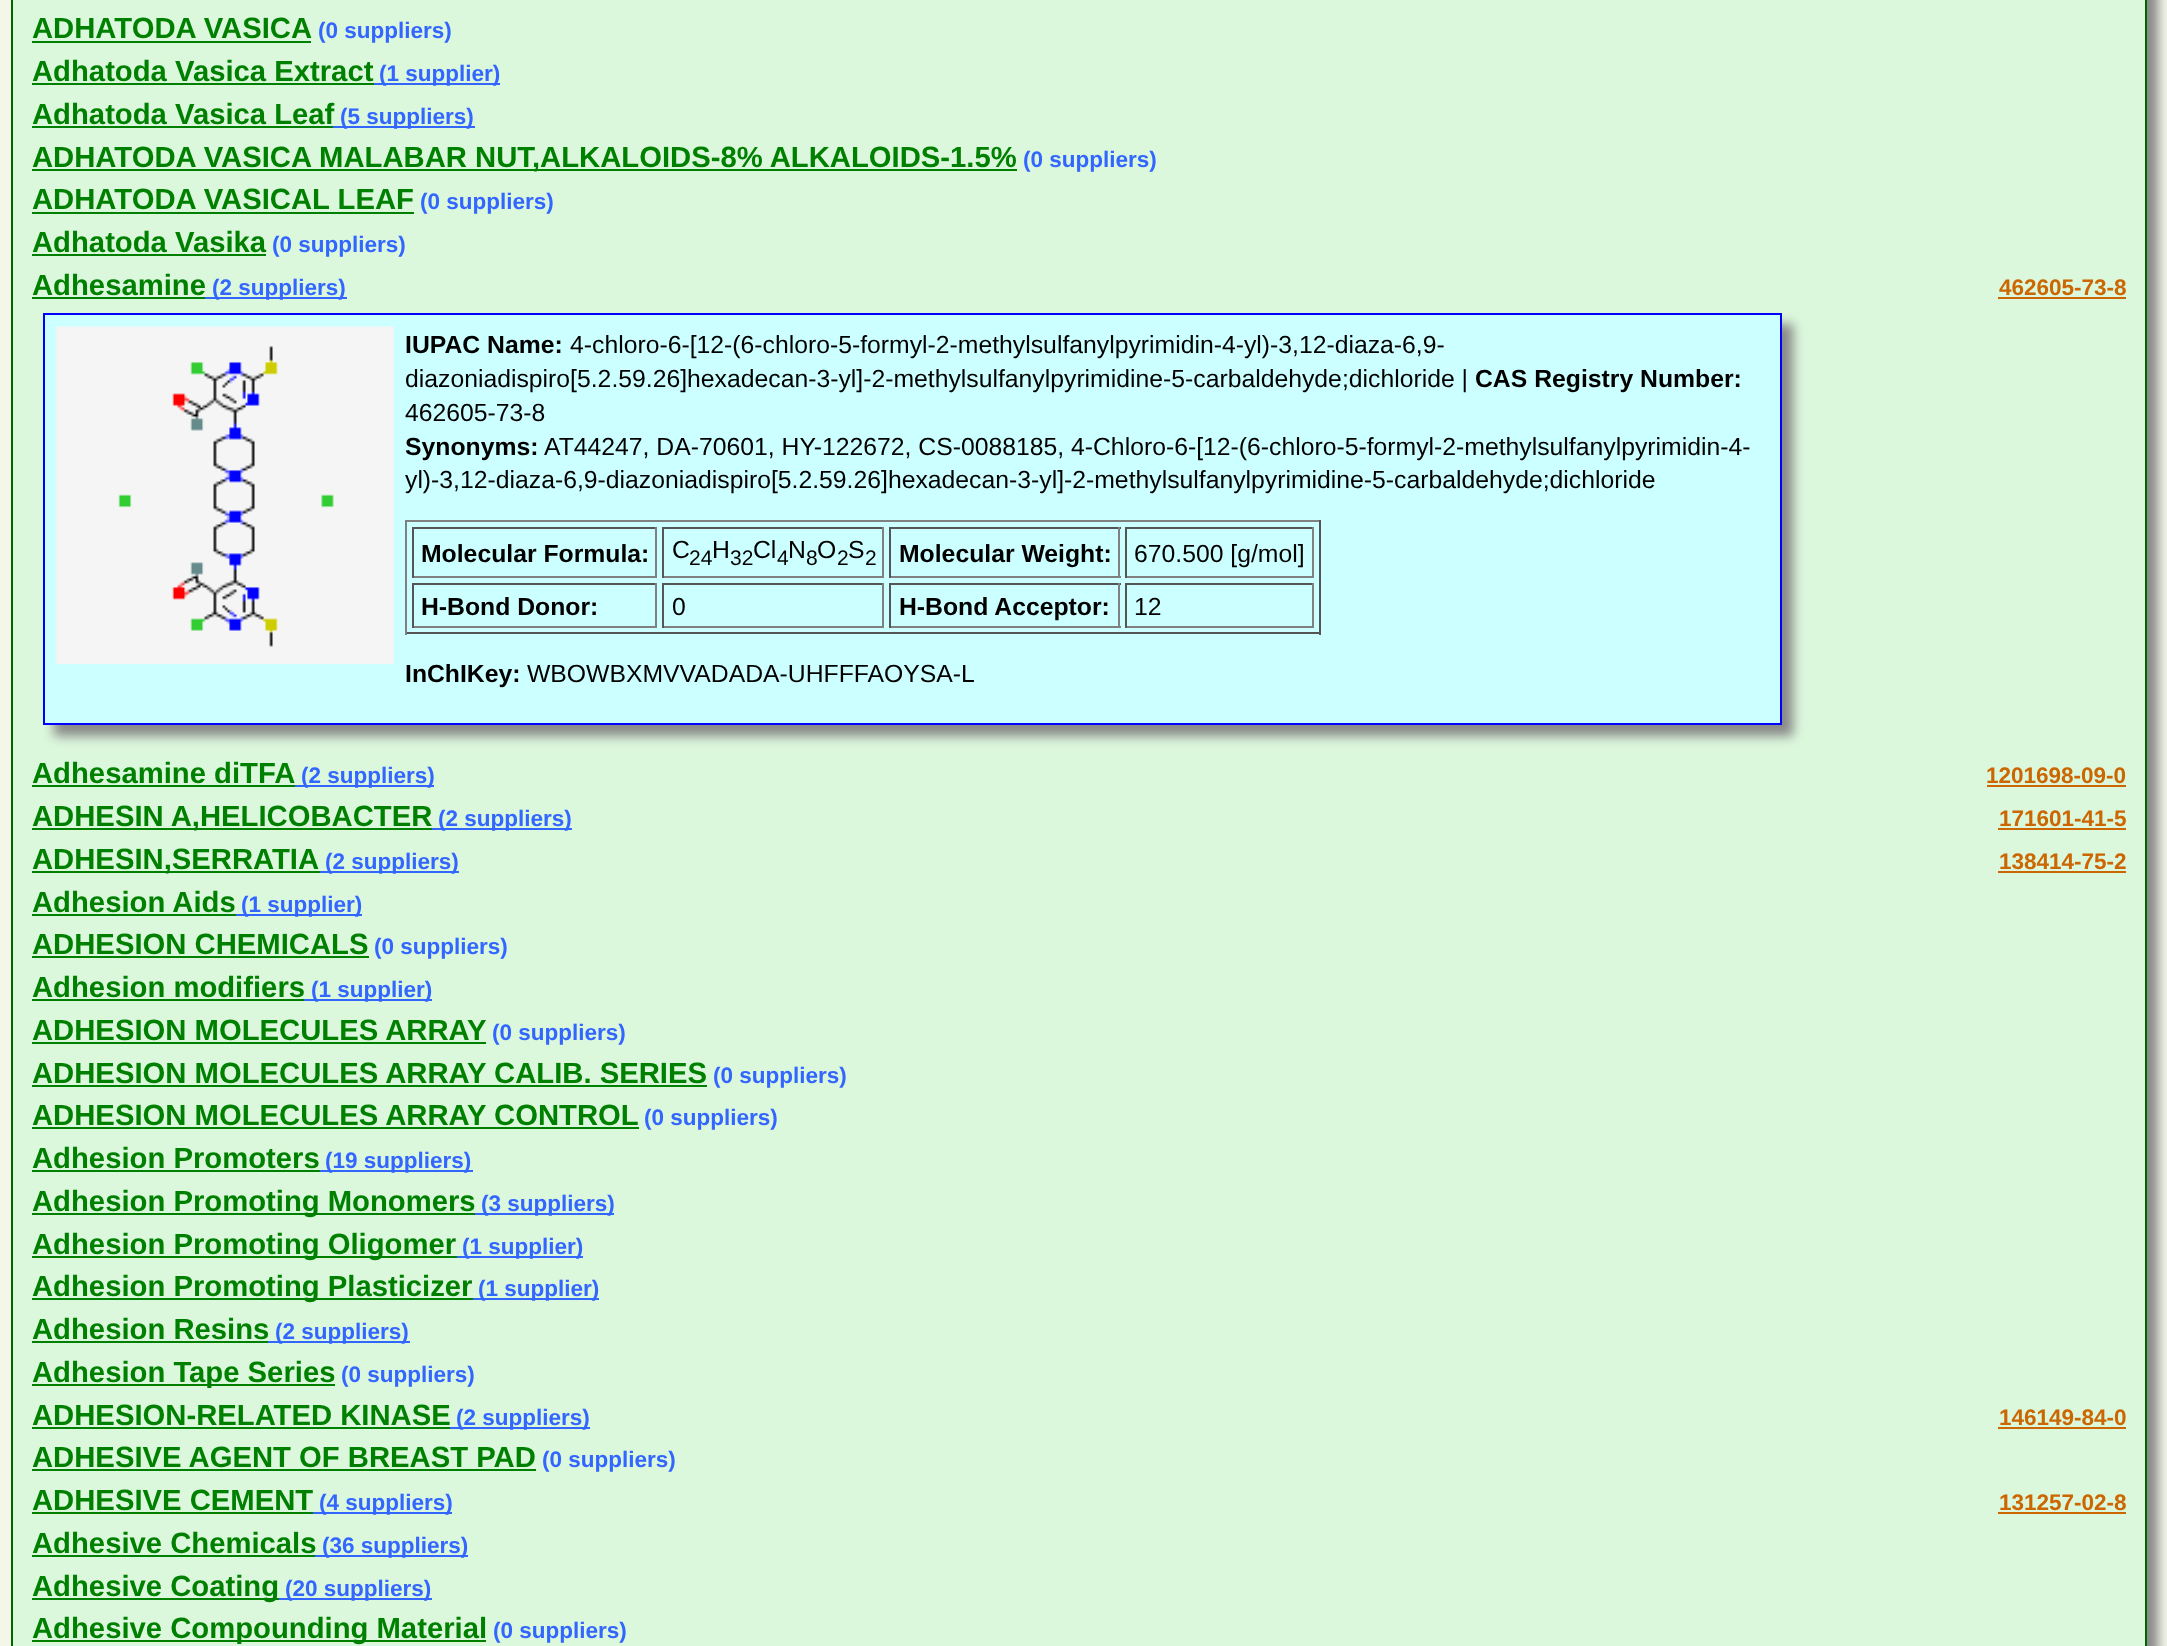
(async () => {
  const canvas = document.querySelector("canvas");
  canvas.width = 2167;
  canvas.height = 1646;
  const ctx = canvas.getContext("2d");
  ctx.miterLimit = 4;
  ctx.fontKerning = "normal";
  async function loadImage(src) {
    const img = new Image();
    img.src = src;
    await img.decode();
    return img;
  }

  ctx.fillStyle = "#f3f6e9";
  ctx.fillRect(0, 0, 2167, 1646);
  ctx.fillStyle = "#888888";
  ctx.filter = "blur(5.5px)";
  ctx.beginPath();
  ctx.rect(23, -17, 2135, 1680);
  ctx.fill();
  ctx.filter = "none";
  ctx.fillStyle = "#dbf7dc";
  ctx.beginPath();
  ctx.rect(12, -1, 2134, 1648);
  ctx.fill();
  ctx.strokeStyle = "#006600";
  ctx.lineWidth = 2;
  ctx.stroke();
  for (const [x, y, w, h, color] of [
    [32, 41, 279, 2, "#008000"],
    [32, 83, 342, 2, "#008000"],
    [374, 83, 126, 2, "#3366ff"],
    [32, 126, 301, 2, "#008000"],
    [333, 126, 142, 2, "#3366ff"],
    [32, 169, 985, 2, "#008000"],
    [32, 212, 382, 2, "#008000"],
    [32, 254, 234, 2, "#008000"],
    [32, 297, 173, 2, "#008000"],
    [205, 297, 142, 2, "#3366ff"],
  ]) {
    ctx.fillStyle = color;
    ctx.fillRect(x, y, w, h);
  }
  ctx.fillStyle = "#888888";
  ctx.filter = "blur(5.5px)";
  ctx.beginPath();
  ctx.rect(54, 324, 1739, 412);
  ctx.fill();
  ctx.filter = "none";
  ctx.fillStyle = "#ccffff";
  ctx.beginPath();
  ctx.rect(44, 314, 1737, 410);
  ctx.fill();
  ctx.strokeStyle = "#0000ff";
  ctx.stroke();
  ctx.drawImage(await loadImage("img/1.png"), 56, 326, 338, 338);
  for (const [x, y, w, h, color] of [
    [405, 520, 916, 2, "#808080"],
    [1319, 520, 2, 115, "#555555"],
    [405, 632, 916, 2, "#555555"],
    [405, 520, 2, 115, "#808080"],
    [412, 527, 245, 2, "#555555"],
    [655, 527, 2, 51, "#808080"],
    [412, 576, 245, 2, "#808080"],
    [412, 527, 2, 51, "#555555"],
    [662, 527, 222, 2, "#555555"],
    [882, 527, 2, 51, "#808080"],
    [662, 576, 222, 2, "#808080"],
    [662, 527, 2, 51, "#555555"],
    [889, 527, 232, 2, "#555555"],
    [1118, 527, 2, 51, "#808080"],
    [889, 576, 232, 2, "#808080"],
    [889, 527, 2, 51, "#555555"],
    [1125, 527, 189, 2, "#555555"],
    [1312, 527, 2, 51, "#808080"],
    [1125, 576, 189, 2, "#808080"],
    [1125, 527, 2, 51, "#555555"],
    [412, 583, 245, 2, "#555555"],
    [655, 583, 2, 45, "#808080"],
    [412, 626, 245, 2, "#808080"],
    [412, 583, 2, 45, "#555555"],
    [662, 583, 222, 2, "#555555"],
    [882, 583, 2, 45, "#808080"],
    [662, 626, 222, 2, "#808080"],
    [662, 583, 2, 45, "#555555"],
    [889, 583, 232, 2, "#555555"],
    [1118, 583, 2, 45, "#808080"],
    [889, 626, 232, 2, "#808080"],
    [889, 583, 2, 45, "#555555"],
    [1125, 583, 189, 2, "#555555"],
    [1312, 583, 2, 45, "#808080"],
    [1125, 626, 189, 2, "#808080"],
    [1125, 583, 2, 45, "#555555"],
    [1998, 297, 128, 2, "#cc6600"],
    [32, 785, 263, 2, "#008000"],
    [295, 785, 139, 2, "#3366ff"],
    [1987, 785, 139, 2, "#cc6600"],
    [32, 828, 400, 2, "#008000"],
    [432, 828, 140, 2, "#3366ff"],
    [1998, 828, 128, 2, "#cc6600"],
    [32, 871, 288, 2, "#008000"],
    [320, 871, 139, 2, "#3366ff"],
    [1998, 871, 128, 2, "#cc6600"],
    [32, 914, 204, 2, "#008000"],
    [236, 914, 126, 2, "#3366ff"],
    [32, 956, 337, 2, "#008000"],
    [32, 999, 272, 2, "#008000"],
    [304, 999, 128, 2, "#3366ff"],
    [32, 1042, 454, 2, "#008000"],
    [32, 1085, 675, 2, "#008000"],
    [32, 1127, 607, 2, "#008000"],
    [32, 1170, 288, 2, "#008000"],
    [320, 1170, 153, 2, "#3366ff"],
    [32, 1213, 443, 2, "#008000"],
    [475, 1213, 139, 2, "#3366ff"],
    [32, 1256, 425, 2, "#008000"],
    [457, 1256, 126, 2, "#3366ff"],
    [32, 1298, 441, 2, "#008000"],
    [473, 1298, 126, 2, "#3366ff"],
    [32, 1341, 236, 2, "#008000"],
    [268, 1341, 142, 2, "#3366ff"],
    [32, 1384, 303, 2, "#008000"],
    [32, 1427, 418, 2, "#008000"],
    [450, 1427, 140, 2, "#3366ff"],
    [1998, 1427, 128, 2, "#cc6600"],
    [32, 1469, 504, 2, "#008000"],
    [32, 1512, 281, 2, "#008000"],
    [313, 1512, 139, 2, "#3366ff"],
    [1998, 1512, 128, 2, "#cc6600"],
    [32, 1555, 283, 2, "#008000"],
    [315, 1555, 153, 2, "#3366ff"],
    [32, 1598, 247, 2, "#008000"],
    [279, 1598, 153, 2, "#3366ff"],
    [32, 1640, 454, 2, "#008000"],
  ]) {
    ctx.fillStyle = color;
    ctx.fillRect(x, y, w, h);
  }
  ctx.font = "bold 29.25px Liberation Sans";
  ctx.fillText("ADHATODA VASICA", 32, 38);
  ctx.font = "bold 22.5px Liberation Sans";
  ctx.fillStyle = "#3366ff";
  ctx.fillText("(0 suppliers)", 318, 38);
  ctx.font = "bold 29.25px Liberation Sans";
  ctx.fillStyle = "#008000";
  ctx.fillText("Adhatoda Vasica Extract", 32, 81);
  ctx.font = "bold 22.5px Liberation Sans";
  ctx.fillStyle = "#3366ff";
  ctx.fillText("(1 supplier)", 379, 81);
  ctx.font = "bold 29.25px Liberation Sans";
  ctx.fillStyle = "#008000";
  ctx.fillText("Adhatoda Vasica Leaf", 32, 124);
  ctx.font = "bold 22.5px Liberation Sans";
  ctx.fillStyle = "#3366ff";
  ctx.fillText("(5 suppliers)", 340, 124);
  ctx.font = "bold 29.25px Liberation Sans";
  ctx.fillStyle = "#008000";
  ctx.fillText("ADHATODA VASICA MALABAR NUT,ALKALOIDS-8% ALKALOIDS-1.5%", 32, 167);
  ctx.font = "bold 22.5px Liberation Sans";
  ctx.fillStyle = "#3366ff";
  ctx.fillText("(0 suppliers)", 1023, 167);
  ctx.font = "bold 29.25px Liberation Sans";
  ctx.fillStyle = "#008000";
  ctx.fillText("ADHATODA VASICAL LEAF", 32, 209);
  ctx.font = "bold 22.5px Liberation Sans";
  ctx.fillStyle = "#3366ff";
  ctx.fillText("(0 suppliers)", 420, 209);
  ctx.font = "bold 29.25px Liberation Sans";
  ctx.fillStyle = "#008000";
  ctx.fillText("Adhatoda Vasika", 32, 252);
  ctx.font = "bold 22.5px Liberation Sans";
  ctx.fillStyle = "#3366ff";
  ctx.fillText("(0 suppliers)", 272, 252);
  ctx.font = "bold 29.25px Liberation Sans";
  ctx.fillStyle = "#008000";
  ctx.fillText("Adhesamine", 32, 295);
  ctx.font = "bold 22.5px Liberation Sans";
  ctx.fillStyle = "#3366ff";
  ctx.fillText("(2 suppliers)", 212, 295);
  ctx.font = "bold 24.75px Liberation Sans";
  ctx.fillStyle = "#000000";
  ctx.fillText("IUPAC Name:", 405, 353);
  ctx.font = "24.75px Liberation Sans";
  ctx.fillText("4-chloro-6-[12-(6-chloro-5-formyl-2-methylsulfanylpyrimidin-4-yl)-3,12-diaza-6,9-", 570, 353);
  ctx.fillText("diazoniadispiro[5.2.59.26]hexadecan-3-yl]-2-methylsulfanylpyrimidine-5-carbaldehyde;dichloride |", 405, 387);
  ctx.font = "bold 24.75px Liberation Sans";
  ctx.fillText("CAS Registry Number:", 1475, 387);
  ctx.font = "24.75px Liberation Sans";
  ctx.fillText("462605-73-8", 405, 421);
  ctx.font = "bold 24.75px Liberation Sans";
  ctx.fillText("Synonyms:", 405, 455);
  ctx.font = "24.75px Liberation Sans";
  ctx.fillText("AT44247, DA-70601, HY-122672, CS-0088185, 4-Chloro-6-[12-(6-chloro-5-formyl-2-methylsulfanylpyrimidin-4-", 544, 455);
  ctx.fillText("yl)-3,12-diaza-6,9-diazoniadispiro[5.2.59.26]hexadecan-3-yl]-2-methylsulfanylpyrimidine-5-carbaldehyde;dichloride", 405, 488);
  ctx.font = "bold 24.75px Liberation Sans";
  ctx.fillText("Molecular Formula:", 421, 562);
  ctx.font = "24.75px Liberation Sans";
  ctx.fillText("C", 672, 558);
  ctx.font = "21px Liberation Sans";
  ctx.fillText("24", 689, 565);
  ctx.font = "24.75px Liberation Sans";
  ctx.fillText("H", 712, 558);
  ctx.font = "21px Liberation Sans";
  ctx.fillText("32", 730, 565);
  ctx.font = "24.75px Liberation Sans";
  ctx.fillText("Cl", 753, 558);
  ctx.font = "21px Liberation Sans";
  ctx.fillText("4", 777, 565);
  ctx.font = "24.75px Liberation Sans";
  ctx.fillText("N", 788, 558);
  ctx.font = "21px Liberation Sans";
  ctx.fillText("8", 806, 565);
  ctx.font = "24.75px Liberation Sans";
  ctx.fillText("O", 817, 558);
  ctx.font = "21px Liberation Sans";
  ctx.fillText("2", 837, 565);
  ctx.font = "24.75px Liberation Sans";
  ctx.fillText("S", 848, 558);
  ctx.font = "21px Liberation Sans";
  ctx.fillText("2", 865, 565);
  ctx.font = "bold 24.75px Liberation Sans";
  ctx.fillText("Molecular Weight:", 899, 562);
  ctx.font = "24.75px Liberation Sans";
  ctx.fillText("670.500 [g/mol]", 1134, 562);
  ctx.font = "bold 24.75px Liberation Sans";
  ctx.fillText("H-Bond Donor:", 421, 615);
  ctx.font = "24.75px Liberation Sans";
  ctx.fillText("0", 672, 615);
  ctx.font = "bold 24.75px Liberation Sans";
  ctx.fillText("H-Bond Acceptor:", 899, 615);
  ctx.font = "24.75px Liberation Sans";
  ctx.fillText("12", 1134, 615);
  ctx.font = "bold 24.75px Liberation Sans";
  ctx.fillText("InChIKey:", 405, 682);
  ctx.font = "24.75px Liberation Sans";
  ctx.fillText("WBOWBXMVVADADA-UHFFFAOYSA-L", 527, 682);
  ctx.font = "bold 22.5px Liberation Sans";
  ctx.fillStyle = "#cc6600";
  ctx.fillText("462605-73-8", 1999, 295);
  ctx.font = "bold 29.25px Liberation Sans";
  ctx.fillStyle = "#008000";
  ctx.fillText("Adhesamine diTFA", 32, 783);
  ctx.font = "bold 22.5px Liberation Sans";
  ctx.fillStyle = "#3366ff";
  ctx.fillText("(2 suppliers)", 301, 783);
  ctx.fillStyle = "#cc6600";
  ctx.fillText("1201698-09-0", 1986, 783);
  ctx.font = "bold 29.25px Liberation Sans";
  ctx.fillStyle = "#008000";
  ctx.fillText("ADHESIN A,HELICOBACTER", 32, 826);
  ctx.font = "bold 22.5px Liberation Sans";
  ctx.fillStyle = "#3366ff";
  ctx.fillText("(2 suppliers)", 438, 826);
  ctx.fillStyle = "#cc6600";
  ctx.fillText("171601-41-5", 1999, 826);
  ctx.font = "bold 29.25px Liberation Sans";
  ctx.fillStyle = "#008000";
  ctx.fillText("ADHESIN,SERRATIA", 32, 869);
  ctx.font = "bold 22.5px Liberation Sans";
  ctx.fillStyle = "#3366ff";
  ctx.fillText("(2 suppliers)", 325, 869);
  ctx.fillStyle = "#cc6600";
  ctx.fillText("138414-75-2", 1999, 869);
  ctx.font = "bold 29.25px Liberation Sans";
  ctx.fillStyle = "#008000";
  ctx.fillText("Adhesion Aids", 32, 912);
  ctx.font = "bold 22.5px Liberation Sans";
  ctx.fillStyle = "#3366ff";
  ctx.fillText("(1 supplier)", 241, 912);
  ctx.font = "bold 29.25px Liberation Sans";
  ctx.fillStyle = "#008000";
  ctx.fillText("ADHESION CHEMICALS", 32, 954);
  ctx.font = "bold 22.5px Liberation Sans";
  ctx.fillStyle = "#3366ff";
  ctx.fillText("(0 suppliers)", 374, 954);
  ctx.font = "bold 29.25px Liberation Sans";
  ctx.fillStyle = "#008000";
  ctx.fillText("Adhesion modifiers", 32, 997);
  ctx.font = "bold 22.5px Liberation Sans";
  ctx.fillStyle = "#3366ff";
  ctx.fillText("(1 supplier)", 311, 997);
  ctx.font = "bold 29.25px Liberation Sans";
  ctx.fillStyle = "#008000";
  ctx.fillText("ADHESION MOLECULES ARRAY", 32, 1040);
  ctx.font = "bold 22.5px Liberation Sans";
  ctx.fillStyle = "#3366ff";
  ctx.fillText("(0 suppliers)", 492, 1040);
  ctx.font = "bold 29.25px Liberation Sans";
  ctx.fillStyle = "#008000";
  ctx.fillText("ADHESION MOLECULES ARRAY CALIB. SERIES", 32, 1083);
  ctx.font = "bold 22.5px Liberation Sans";
  ctx.fillStyle = "#3366ff";
  ctx.fillText("(0 suppliers)", 713, 1083);
  ctx.font = "bold 29.25px Liberation Sans";
  ctx.fillStyle = "#008000";
  ctx.fillText("ADHESION MOLECULES ARRAY CONTROL", 32, 1125);
  ctx.font = "bold 22.5px Liberation Sans";
  ctx.fillStyle = "#3366ff";
  ctx.fillText("(0 suppliers)", 644, 1125);
  ctx.font = "bold 29.25px Liberation Sans";
  ctx.fillStyle = "#008000";
  ctx.fillText("Adhesion Promoters", 32, 1168);
  ctx.font = "bold 22.5px Liberation Sans";
  ctx.fillStyle = "#3366ff";
  ctx.fillText("(19 suppliers)", 325, 1168);
  ctx.font = "bold 29.25px Liberation Sans";
  ctx.fillStyle = "#008000";
  ctx.fillText("Adhesion Promoting Monomers", 32, 1211);
  ctx.font = "bold 22.5px Liberation Sans";
  ctx.fillStyle = "#3366ff";
  ctx.fillText("(3 suppliers)", 481, 1211);
  ctx.font = "bold 29.25px Liberation Sans";
  ctx.fillStyle = "#008000";
  ctx.fillText("Adhesion Promoting Oligomer", 32, 1254);
  ctx.font = "bold 22.5px Liberation Sans";
  ctx.fillStyle = "#3366ff";
  ctx.fillText("(1 supplier)", 462, 1254);
  ctx.font = "bold 29.25px Liberation Sans";
  ctx.fillStyle = "#008000";
  ctx.fillText("Adhesion Promoting Plasticizer", 32, 1296);
  ctx.font = "bold 22.5px Liberation Sans";
  ctx.fillStyle = "#3366ff";
  ctx.fillText("(1 supplier)", 478, 1296);
  ctx.font = "bold 29.25px Liberation Sans";
  ctx.fillStyle = "#008000";
  ctx.fillText("Adhesion Resins", 32, 1339);
  ctx.font = "bold 22.5px Liberation Sans";
  ctx.fillStyle = "#3366ff";
  ctx.fillText("(2 suppliers)", 275, 1339);
  ctx.font = "bold 29.25px Liberation Sans";
  ctx.fillStyle = "#008000";
  ctx.fillText("Adhesion Tape Series", 32, 1382);
  ctx.font = "bold 22.5px Liberation Sans";
  ctx.fillStyle = "#3366ff";
  ctx.fillText("(0 suppliers)", 341, 1382);
  ctx.font = "bold 29.25px Liberation Sans";
  ctx.fillStyle = "#008000";
  ctx.fillText("ADHESION-RELATED KINASE", 32, 1425);
  ctx.font = "bold 22.5px Liberation Sans";
  ctx.fillStyle = "#3366ff";
  ctx.fillText("(2 suppliers)", 456, 1425);
  ctx.fillStyle = "#cc6600";
  ctx.fillText("146149-84-0", 1999, 1425);
  ctx.font = "bold 29.25px Liberation Sans";
  ctx.fillStyle = "#008000";
  ctx.fillText("ADHESIVE AGENT OF BREAST PAD", 32, 1467);
  ctx.font = "bold 22.5px Liberation Sans";
  ctx.fillStyle = "#3366ff";
  ctx.fillText("(0 suppliers)", 542, 1467);
  ctx.font = "bold 29.25px Liberation Sans";
  ctx.fillStyle = "#008000";
  ctx.fillText("ADHESIVE CEMENT", 32, 1510);
  ctx.font = "bold 22.5px Liberation Sans";
  ctx.fillStyle = "#3366ff";
  ctx.fillText("(4 suppliers)", 319, 1510);
  ctx.fillStyle = "#cc6600";
  ctx.fillText("131257-02-8", 1999, 1510);
  ctx.font = "bold 29.25px Liberation Sans";
  ctx.fillStyle = "#008000";
  ctx.fillText("Adhesive Chemicals", 32, 1553);
  ctx.font = "bold 22.5px Liberation Sans";
  ctx.fillStyle = "#3366ff";
  ctx.fillText("(36 suppliers)", 322, 1553);
  ctx.font = "bold 29.25px Liberation Sans";
  ctx.fillStyle = "#008000";
  ctx.fillText("Adhesive Coating", 32, 1596);
  ctx.font = "bold 22.5px Liberation Sans";
  ctx.fillStyle = "#3366ff";
  ctx.fillText("(20 suppliers)", 285, 1596);
  ctx.font = "bold 29.25px Liberation Sans";
  ctx.fillStyle = "#008000";
  ctx.fillText("Adhesive Compounding Material", 32, 1638);
  ctx.font = "bold 22.5px Liberation Sans";
  ctx.fillStyle = "#3366ff";
  ctx.fillText("(0 suppliers)", 493, 1638);
})();
